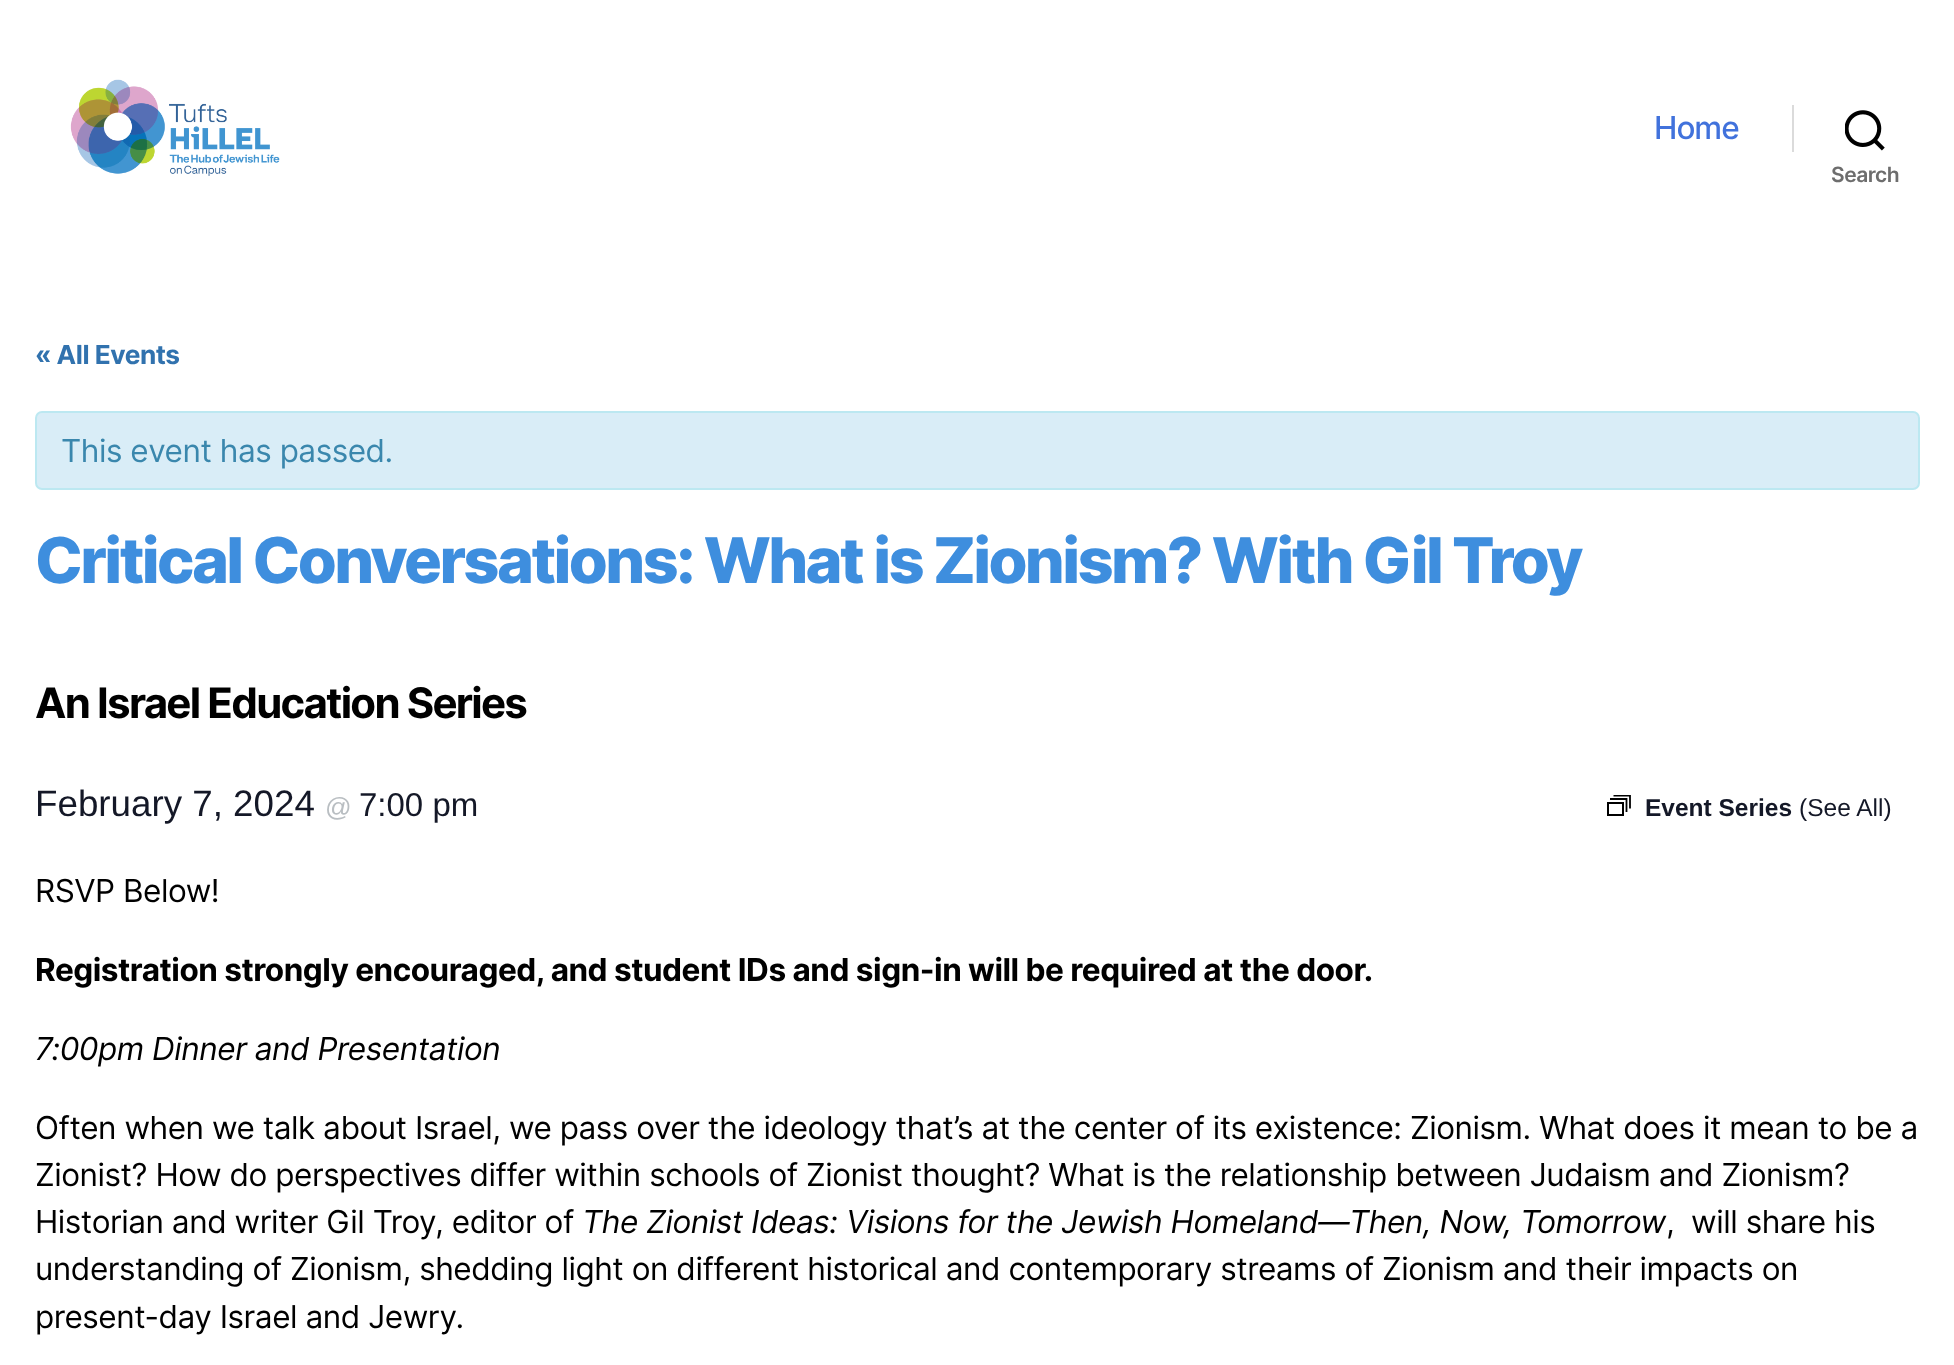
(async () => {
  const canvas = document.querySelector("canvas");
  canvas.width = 1954;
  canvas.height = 1365;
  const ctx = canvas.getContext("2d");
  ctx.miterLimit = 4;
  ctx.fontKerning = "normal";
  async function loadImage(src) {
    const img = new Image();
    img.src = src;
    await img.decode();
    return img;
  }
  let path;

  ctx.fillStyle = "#ffffff";
  ctx.fillRect(0, 0, 1954, 1365);
  ctx.drawImage(await loadImage("img/1.png"), 70, 79, 210, 97);
  ctx.fillStyle = "#dbdbdb";
  ctx.fillRect(1792, 105, 2, 47);
  ctx.drawImage(await loadImage("img/2.png"), 1845, 110, 40, 41);
  ctx.fillStyle = "#d9edf7";
  ctx.beginPath();
  ctx.roundRect(36, 412, 1883, 77, 6);
  ctx.fill();
  ctx.strokeStyle = "#bce8f1";
  ctx.lineWidth = 2;
  ctx.stroke();
  ctx.strokeStyle = "#000000";
  ctx.strokeRect(1608, 803, 15, 12);
  path = new Path2D("M1610 799H1626.5V812");
  ctx.lineWidth = 1.8;
  ctx.stroke(path);
  ctx.save();
  ctx.beginPath();
  ctx.rect(1607, 795, 24, 21);
  ctx.clip();
  path = new Path2D("M1613.5 795.5H1630V808.5");
  ctx.stroke(path);
  ctx.restore();
  ctx.letterSpacing = "-1px";
  ctx.font = "500 31.5px Inter";
  ctx.fillStyle = "#4172dc";
  ctx.fillText("Home", 1654, 139);
  ctx.letterSpacing = "-0.47px";
  ctx.font = "600 21px Inter";
  ctx.fillStyle = "#6d6d6d";
  ctx.fillText("Search", 1831, 182);
  ctx.font = "bold 26.25px Inter";
  ctx.fillStyle = "#3172ae";
  ctx.fillText("« All Events", 35, 364);
  ctx.font = "31.5px Inter";
  ctx.fillStyle = "#3a87ad";
  ctx.fillText("This event has passed.", 61, 462);
  ctx.letterSpacing = "-2.62px";
  ctx.font = "800 63px Inter";
  ctx.fillStyle = "#3e8ede";
  ctx.fillText("Critical Conversations: What is Zionism? With Gil Troy", 35, 583);
  ctx.letterSpacing = "-1.75px";
  ctx.font = "bold 42px Inter";
  ctx.fillStyle = "#000000";
  ctx.fillText("An Israel Education Series", 35, 718);
  ctx.letterSpacing = "0px";
  ctx.font = "36.75px Liberation Sans";
  ctx.fillStyle = "#141827";
  ctx.fillText("February 7, 2024", 35, 816);
  ctx.font = "26.25px Liberation Sans";
  ctx.fillStyle = "#b9bec2";
  ctx.fillText("@", 325, 816);
  ctx.font = "33px Liberation Sans";
  ctx.fillStyle = "#141827";
  ctx.fillText("7:00 pm", 359, 816);
  ctx.font = "bold 24.5px Liberation Sans";
  ctx.fillText("Event Series", 1645, 816);
  ctx.font = "24.5px Liberation Sans";
  ctx.fillText("(See All)", 1799, 816);
  ctx.letterSpacing = "-0.47px";
  ctx.font = "31.5px Inter";
  ctx.fillStyle = "#000000";
  ctx.fillText("RSVP Below!", 35, 902);
  ctx.font = "bold 31.5px Inter";
  ctx.fillText("Registration strongly encouraged, and student IDs and sign-in will be required at the door.", 35, 981);
  ctx.font = "italic 31.5px Inter";
  ctx.fillText("7:00pm Dinner and Presentation", 35, 1060);
  ctx.font = "31.5px Inter";
  for (const [text, x, y] of [
    ["Often when we talk about Israel, we pass over the ideology that’s at the center of its existence: Zionism. What does it mean to be a", 35, 1139],
    ["Zionist? How do perspectives differ within schools of Zionist thought? What is the relationship between Judaism and Zionism?", 35, 1186],
    ["Historian and writer Gil Troy, editor of", 35, 1233],
  ]) {
    ctx.fillText(text, x, y);
  }
  ctx.font = "italic 31.5px Inter";
  ctx.fillText("The Zionist Ideas: Visions for the Jewish Homeland—Then, Now, Tomorrow", 582, 1233);
  ctx.font = "31.5px Inter";
  for (const [text, x, y] of [
    [",  will share his", 1666, 1233],
    ["understanding of Zionism, shedding light on different historical and contemporary streams of Zionism and their impacts on", 35, 1280],
    ["present-day Israel and Jewry.", 35, 1328],
  ]) {
    ctx.fillText(text, x, y);
  }
})();
